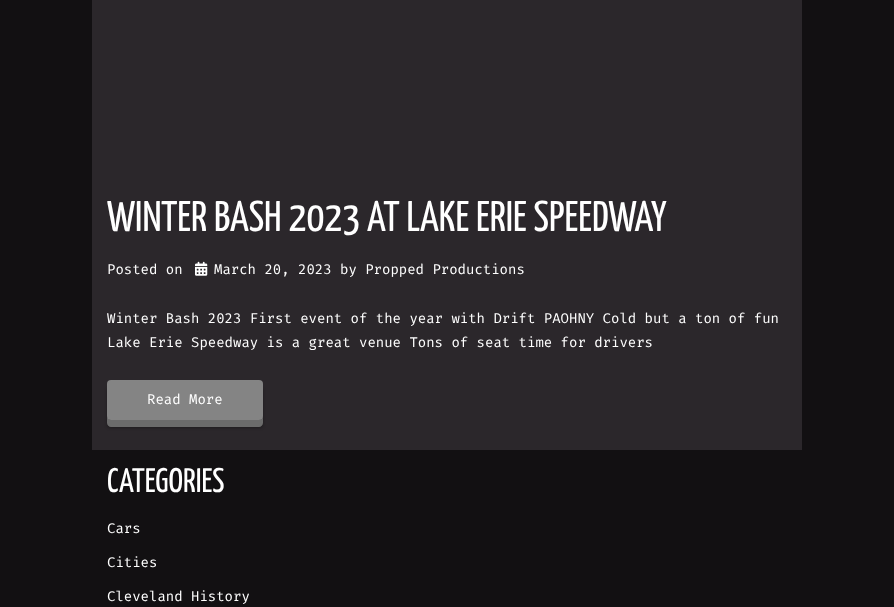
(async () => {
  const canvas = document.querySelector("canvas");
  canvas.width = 894;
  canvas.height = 607;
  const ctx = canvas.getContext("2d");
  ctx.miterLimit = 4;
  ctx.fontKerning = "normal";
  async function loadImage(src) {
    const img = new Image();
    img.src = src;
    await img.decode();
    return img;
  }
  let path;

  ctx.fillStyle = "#121012";
  ctx.fillRect(0, 0, 894, 607);
  ctx.fillStyle = "#2b272b";
  ctx.fillRect(92, 0, 710, 450);
  ctx.drawImage(await loadImage("img/1.png"), 195, 261, 13, 15);
  ctx.fillStyle = "rgba(0, 0, 0, 0.3)";
  ctx.filter = "blur(1.5px)";
  ctx.beginPath();
  ctx.roundRect(107, 388, 156, 40, 4);
  ctx.fill();
  ctx.filter = "none";
  ctx.fillStyle = "#6b6b6b";
  path = new Path2D("M107 416V423C107 425 109 427 111 427H259C261 427 263 425 263 423V416L262 419L259 420H111C109 420 107 418 107 416Z");
  ctx.fill(path);
  ctx.fillStyle = "#848484";
  ctx.beginPath();
  ctx.roundRect(107, 380, 156, 40, 4);
  ctx.fill();
  ctx.font = "200 43px Yanone Kaffeesatz";
  ctx.fillStyle = "#ffffff";
  ctx.fillText("WINTER BASH 2023 AT LAKE ERIE SPEEDWAY", 107, 231);
  ctx.font = "14px Fira Mono";
  for (const [text, x, y] of [
    ["Posted on", 107, 274],
    ["March 20, 2023 by Propped Productions", 214, 274],
    ["Winter Bash 2023 First event of the year with Drift PAOHNY Cold but a ton of fun", 107, 323],
    ["Lake Erie Speedway is a great venue Tons of seat time for drivers", 107, 347],
    ["Read More", 147, 404],
  ]) {
    ctx.fillText(text, x, y);
  }
  ctx.font = "200 34px Yanone Kaffeesatz";
  ctx.fillText("CATEGORIES", 107, 492);
  ctx.font = "14px Fira Mono";
  for (const [text, x, y] of [
    ["Cars", 107, 533],
    ["Cities", 107, 567],
    ["Cleveland History", 107, 601],
  ]) {
    ctx.fillText(text, x, y);
  }
})();
